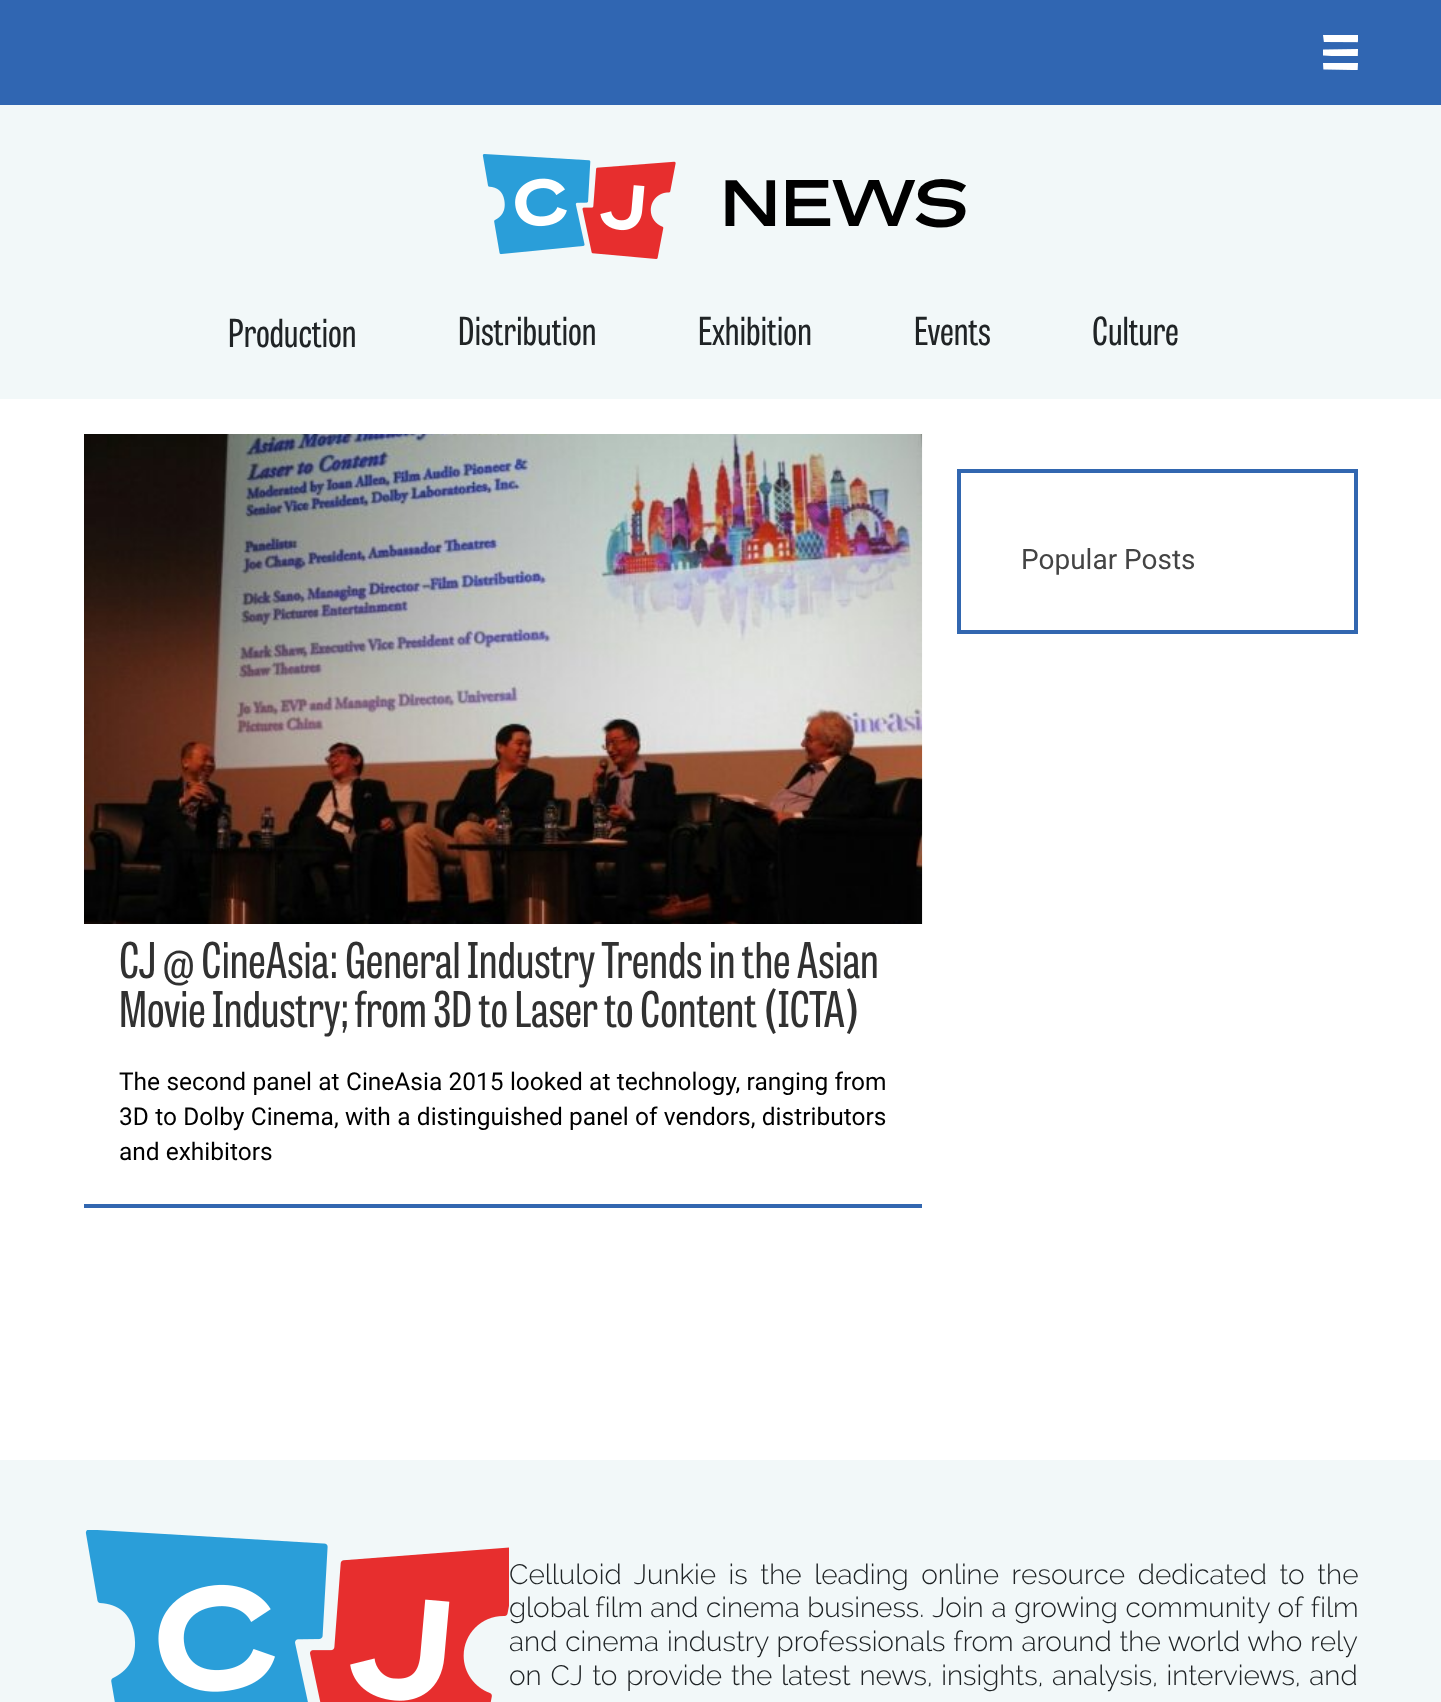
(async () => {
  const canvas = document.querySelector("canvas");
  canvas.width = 1441;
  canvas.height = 1702;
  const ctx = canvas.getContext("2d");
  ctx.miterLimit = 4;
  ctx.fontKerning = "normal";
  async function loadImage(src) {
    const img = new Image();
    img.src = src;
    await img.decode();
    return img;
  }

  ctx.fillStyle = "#ffffff";
  ctx.fillRect(0, 0, 1441, 1702);
  ctx.fillStyle = "#3066b2";
  ctx.fillRect(0, 0, 1441, 105);
  ctx.drawImage(await loadImage("img/1.png"), 1323, 35, 35, 35);
  ctx.fillStyle = "#f2f8f9";
  ctx.fillRect(0, 105, 1441, 294);
  ctx.drawImage(await loadImage("img/2.png"), 482, 154, 194, 105);
  ctx.strokeStyle = "#3267b0";
  ctx.lineWidth = 4;
  ctx.strokeRect(959, 471, 397, 161);
  ctx.drawImage(await loadImage("img/3.png"), 84, 434, 839, 490);
  ctx.fillStyle = "#3267b0";
  ctx.fillRect(84, 1204, 838, 4);
  ctx.fillStyle = "#f2f8f9";
  ctx.fillRect(0, 1460, 1441, 242);
  ctx.drawImage(await loadImage("img/4.png"), 85, 1530, 424, 172);
  ctx.font = "65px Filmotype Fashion";
  ctx.fillStyle = "#000000";
  ctx.fillText("NEWS", 720, 226);
  ctx.font = "38.5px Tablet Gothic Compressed";
  ctx.fillStyle = "#202426";
  for (const [text, x, y] of [
    ["Production", 228, 347],
    ["Distribution", 458, 345],
    ["Exhibition", 698, 345],
    ["Events", 914, 345],
    ["Culture", 1092, 345],
  ]) {
    ctx.fillText(text, x, y);
  }
  ctx.font = "28px Roboto";
  ctx.fillStyle = "#444444";
  ctx.fillText("Popular Posts", 1021, 569);
  ctx.font = "49px Tablet Gothic Compressed";
  ctx.fillStyle = "#313131";
  ctx.fillText("CJ @ CineAsia: General Industry Trends in the Asian", 119, 978);
  ctx.fillText("Movie Industry; from 3D to Laser to Content (ICTA)", 119, 1027);
  ctx.wordSpacing = "0.25px";
  ctx.font = "24.5px Roboto";
  ctx.fillStyle = "#000000";
  ctx.fillText("The second panel at CineAsia 2015 looked at technology, ranging from", 119, 1090);
  ctx.fillText("3D to Dolby Cinema, with a distinguished panel of vendors, distributors", 119, 1125);
  ctx.wordSpacing = "0px";
  ctx.fillText("and exhibitors", 119, 1160);
  ctx.wordSpacing = "5.25px";
  ctx.font = "300 28px Raleway";
  ctx.fillStyle = "#202426";
  ctx.fillText("Celluloid Junkie is the leading online resource dedicated to the", 509, 1584);
  ctx.wordSpacing = "0px";
  ctx.fillText("global film and cinema business.", 509, 1617);
  ctx.wordSpacing = "0.5px";
  ctx.fillText("Join a growing community of film", 932, 1617);
  ctx.fillText("and cinema industry professionals from around the world who rely", 509, 1651);
  ctx.wordSpacing = "1.5px";
  ctx.fillText("on CJ to provide the latest news, insights, analysis, interviews, and", 509, 1685);
})();
